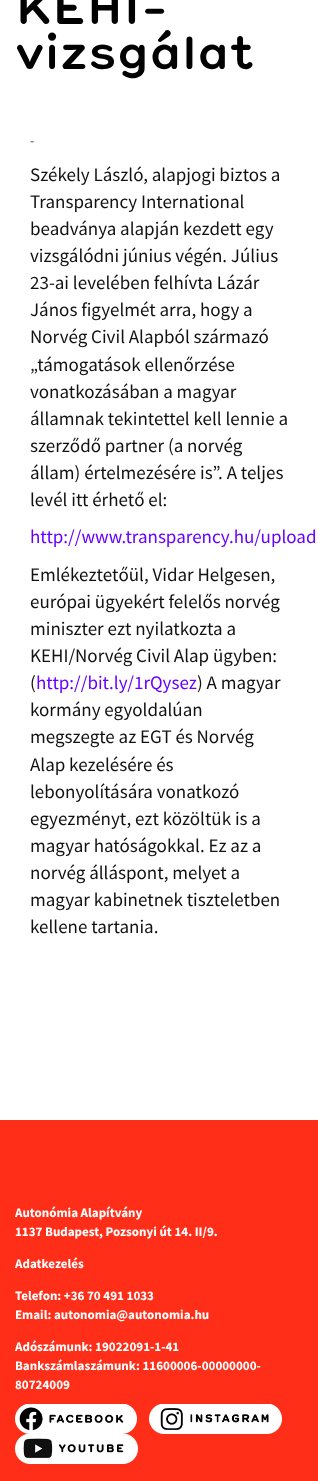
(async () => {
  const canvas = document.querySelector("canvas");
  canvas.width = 318;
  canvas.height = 1481;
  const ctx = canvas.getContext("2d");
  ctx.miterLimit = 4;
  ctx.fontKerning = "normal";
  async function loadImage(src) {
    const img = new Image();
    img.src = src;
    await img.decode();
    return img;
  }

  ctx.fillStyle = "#ffffff";
  ctx.fillRect(0, 0, 318, 1481);
  ctx.fillStyle = "#ff2e18";
  ctx.fillRect(0, 1120, 318, 361);
  ctx.drawImage(await loadImage("img/1.png"), 15, 1404, 122, 30);
  ctx.drawImage(await loadImage("img/2.png"), 149, 1404, 133, 30);
  ctx.drawImage(await loadImage("img/3.png"), 15, 1434, 123, 30);
  ctx.font = "bold 45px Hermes";
  ctx.fillStyle = "#000000";
  ctx.fillText("KEHI-", 15, 24);
  ctx.fillText("vizsgálat", 15, 69);
  ctx.font = "bold 13px Source Sans Pro";
  ctx.fillStyle = "#8e8388";
  ctx.fillText("-", 30, 145);
  ctx.font = "19px Source Sans Pro";
  ctx.fillStyle = "#111111";
  for (const [text, x, y] of [
    ["Székely László, alapjogi biztos a", 30, 181],
    ["Transparency International", 30, 208],
    ["beadványa alapján kezdett egy", 30, 235],
    ["vizsgálódni június végén. Július", 30, 262],
    ["23-ai levelében felhívta Lázár", 30, 289],
    ["János figyelmét arra, hogy a", 30, 316],
    ["Norvég Civil Alapból származó", 30, 343],
    ["„támogatások ellenőrzése", 30, 371],
    ["vonatkozásában a magyar", 30, 398],
    ["államnak tekintettel kell lennie a", 30, 425],
    ["szerződő partner (a norvég", 30, 452],
    ["állam) értelmezésére is”. A teljes", 30, 479],
    ["levél itt érhető el:", 30, 506],
  ]) {
    ctx.fillText(text, x, y);
  }
  ctx.fillStyle = "#6600ff";
  ctx.fillText("http://www.transparency.hu/upload", 30, 543);
  ctx.fillStyle = "#111111";
  for (const [text, x, y] of [
    ["Emlékeztetőül, Vidar Helgesen,", 30, 581],
    ["európai ügyekért felelős norvég", 30, 608],
    ["miniszter ezt nyilatkozta a", 30, 635],
    ["KEHI/Norvég Civil Alap ügyben:", 30, 662],
    ["(", 30, 689],
  ]) {
    ctx.fillText(text, x, y);
  }
  ctx.fillStyle = "#6600ff";
  ctx.fillText("http://bit.ly/1rQysez", 36, 689);
  ctx.fillStyle = "#111111";
  for (const [text, x, y] of [
    [") A magyar", 197, 689],
    ["kormány egyoldalúan", 30, 716],
    ["megszegte az EGT és Norvég", 30, 743],
    ["Alap kezelésére és", 30, 771],
    ["lebonyolítására vonatkozó", 30, 798],
    ["egyezményt, ezt közöltük is a", 30, 825],
    ["magyar hatóságokkal. Ez az a", 30, 852],
    ["norvég álláspont, melyet a", 30, 879],
    ["magyar kabinetnek tiszteletben", 30, 906],
    ["kellene tartania.", 30, 933],
  ]) {
    ctx.fillText(text, x, y);
  }
  ctx.font = "bold 13px Source Sans Pro";
  ctx.fillStyle = "#ffffff";
  for (const [text, x, y] of [
    ["Autonómia Alapítvány", 15, 1217],
    ["1137 Budapest, Pozsonyi út 14. II/9.", 15, 1236],
    ["Adatkezelés", 15, 1268],
    ["Telefon: +36 70 491 1033", 15, 1300],
    ["Email: autonomia@autonomia.hu", 15, 1319],
    ["Adószámunk: 19022091-1-41", 15, 1351],
    ["Bankszámlaszámunk: 11600006-00000000-", 15, 1370],
    ["80724009", 15, 1389],
  ]) {
    ctx.fillText(text, x, y);
  }
})();
